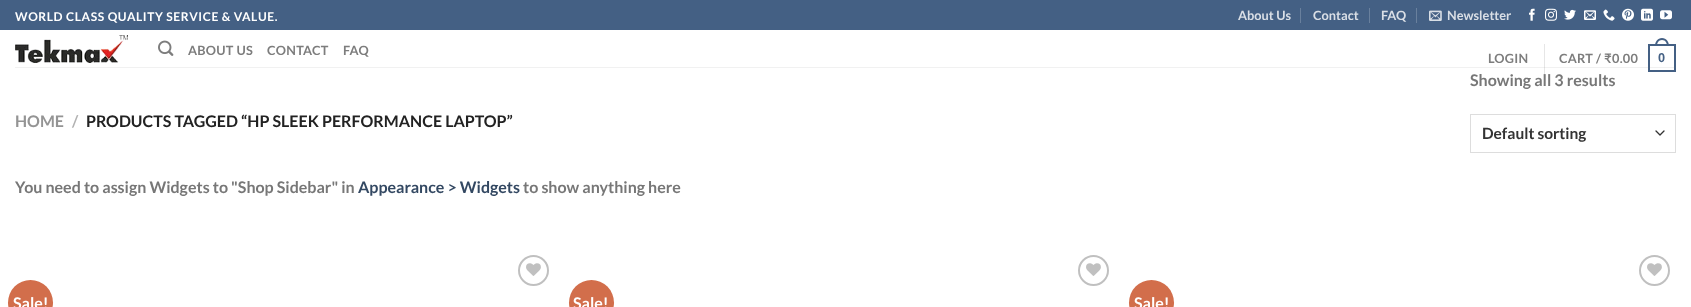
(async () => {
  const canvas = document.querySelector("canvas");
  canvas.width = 1691;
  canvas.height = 307;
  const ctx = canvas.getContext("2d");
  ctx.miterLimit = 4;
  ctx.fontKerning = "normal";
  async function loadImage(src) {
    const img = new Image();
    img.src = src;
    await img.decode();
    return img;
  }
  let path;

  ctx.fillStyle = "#ffffff";
  ctx.fillRect(0, 0, 1691, 307);
  for (const [x, y, w, h, color] of [
    [0, 0, 1691, 30, "#446084"],
    [1300, 8, 1, 15, "#69809d"],
    [1369, 8, 1, 15, "#69809d"],
    [1416, 8, 1, 15, "#69809d"],
  ]) {
    ctx.fillStyle = color;
    ctx.fillRect(x, y, w, h);
  }
  ctx.drawImage(await loadImage("img/1.png"), 1429, 10, 13, 11);
  ctx.drawImage(await loadImage("img/2.png"), 1529, 8, 6, 13);
  ctx.drawImage(await loadImage("img/3.png"), 1545, 8, 12, 13);
  ctx.drawImage(await loadImage("img/4.png"), 1564, 9, 12, 11);
  ctx.drawImage(await loadImage("img/5.png"), 1584, 10, 12, 10);
  ctx.drawImage(await loadImage("img/6.png"), 1603, 9, 12, 12);
  ctx.drawImage(await loadImage("img/7.png"), 1622, 8, 12, 13);
  ctx.drawImage(await loadImage("img/8.png"), 1641, 8, 12, 13);
  ctx.drawImage(await loadImage("img/9.png"), 1660, 10, 12, 10);
  ctx.drawImage(await loadImage("img/10.png"), 15, 35, 113, 28);
  ctx.drawImage(await loadImage("img/11.png"), 158, 40, 16, 16);
  ctx.fillStyle = "#e6e6e6";
  ctx.fillRect(1544, 44, 1, 30);
  ctx.strokeStyle = "#446084";
  ctx.lineWidth = 2;
  ctx.strokeRect(1649, 45, 26, 26);
  ctx.fillStyle = "#446084";
  path = new Path2D("M1662 38C1666.5 38 1669 42 1669 46H1655C1655 42 1657.5 38 1662 38ZM1662 40C1665.5 40 1667 43 1667 46H1657C1657 43 1658.5 40 1662 40Z");
  ctx.fill(path, "evenodd");
  ctx.fillStyle = "rgba(119, 119, 119, 0.1)";
  ctx.fillRect(15, 67, 1661, 1);
  path = new Path2D("M1656 131L1660 135L1664 131");
  ctx.strokeStyle = "#333333";
  ctx.lineWidth = 1.3;
  ctx.lineCap = "round";
  ctx.lineJoin = "round";
  ctx.stroke(path);
  ctx.strokeStyle = "#dddddd";
  ctx.lineWidth = 1;
  ctx.lineJoin = "miter";
  ctx.strokeRect(1470.5, 114.5, 205, 38);
  ctx.beginPath();
  ctx.arc(533.5, 270.5, 14.5, 0, Math.PI * 2);
  ctx.strokeStyle = "#c0c0c0";
  ctx.lineWidth = 2;
  ctx.stroke();
  ctx.drawImage(await loadImage("img/12.png"), 526, 263, 15, 13);
  ctx.fillStyle = "#d26e4b";
  ctx.beginPath();
  ctx.arc(30.5, 302.5, 22.5, 0, Math.PI * 2);
  ctx.fill();
  ctx.beginPath();
  ctx.arc(1093.5, 270.5, 14.5, 0, Math.PI * 2);
  ctx.stroke();
  ctx.drawImage(await loadImage("img/12.png"), 1086, 263, 15, 13);
  ctx.beginPath();
  ctx.arc(591.5, 302.5, 22.5, 0, Math.PI * 2);
  ctx.fill();
  ctx.beginPath();
  ctx.arc(1654.5, 270.5, 14.5, 0, Math.PI * 2);
  ctx.stroke();
  ctx.drawImage(await loadImage("img/12.png"), 1647, 263, 15, 13);
  ctx.beginPath();
  ctx.arc(1151.5, 302.5, 22.5, 0, Math.PI * 2);
  ctx.fill();
  ctx.letterSpacing = "0.6px";
  ctx.font = "bold 12px Lato";
  ctx.fillStyle = "#ffffff";
  ctx.fillText("WORLD CLASS QUALITY SERVICE & VALUE.", 15, 21);
  ctx.letterSpacing = "0px";
  ctx.font = "bold 12.75px Lato";
  ctx.fillStyle = "#dadfe6";
  for (const [text, x, y] of [
    ["About Us", 1238, 20],
    ["Contact", 1313, 20],
    ["FAQ", 1381, 20],
    ["Newsletter", 1447, 20],
  ]) {
    ctx.fillText(text, x, y);
  }
  ctx.letterSpacing = "0.25px";
  ctx.fillStyle = "#7d7d7d";
  for (const [text, x, y] of [
    ["ABOUT US", 188, 55],
    ["CONTACT", 267, 55],
    ["FAQ", 343, 55],
    ["LOGIN", 1488, 63],
    ["CART /", 1559, 63],
  ]) {
    ctx.fillText(text, x, y);
  }
  ctx.font = "bold 12.75px 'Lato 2'";
  ctx.fillText("₹", 1604, 63);
  ctx.font = "bold 12.75px Lato";
  ctx.fillText("0.00", 1612, 63);
  ctx.font = "bold 12.75px Liberation Sans";
  ctx.fillStyle = "#446084";
  ctx.fillText("0", 1658, 62);
  ctx.letterSpacing = "0px";
  ctx.font = "bold 16px Lato";
  ctx.fillStyle = "#949494";
  ctx.fillText("HOME", 15, 127);
  ctx.fillStyle = "#b2b2b2";
  ctx.fillText("/", 72, 127);
  ctx.fillStyle = "#222222";
  ctx.fillText("PRODUCTS TAGGED “HP SLEEK PERFORMANCE LAPTOP”", 86, 127);
  ctx.fillStyle = "#777777";
  ctx.fillText("Showing all 3 results", 1470, 86);
  ctx.font = "bold 15.5px Lato";
  ctx.fillStyle = "#333333";
  ctx.fillText("Default sorting", 1482, 139);
  ctx.font = "bold 16px Lato";
  ctx.fillStyle = "#777777";
  ctx.fillText("You need to assign Widgets to \"Shop Sidebar\" in", 15, 193);
  ctx.fillStyle = "#334862";
  ctx.fillText("Appearance > Widgets", 358, 193);
  ctx.fillStyle = "#777777";
  ctx.fillText("to show anything here", 523, 193);
  ctx.fillStyle = "#ffffff";
  for (const [text, x, y] of [
    ["Sale!", 13, 309],
    ["Sale!", 573, 309],
    ["Sale!", 1134, 309],
  ]) {
    ctx.fillText(text, x, y);
  }
})();
